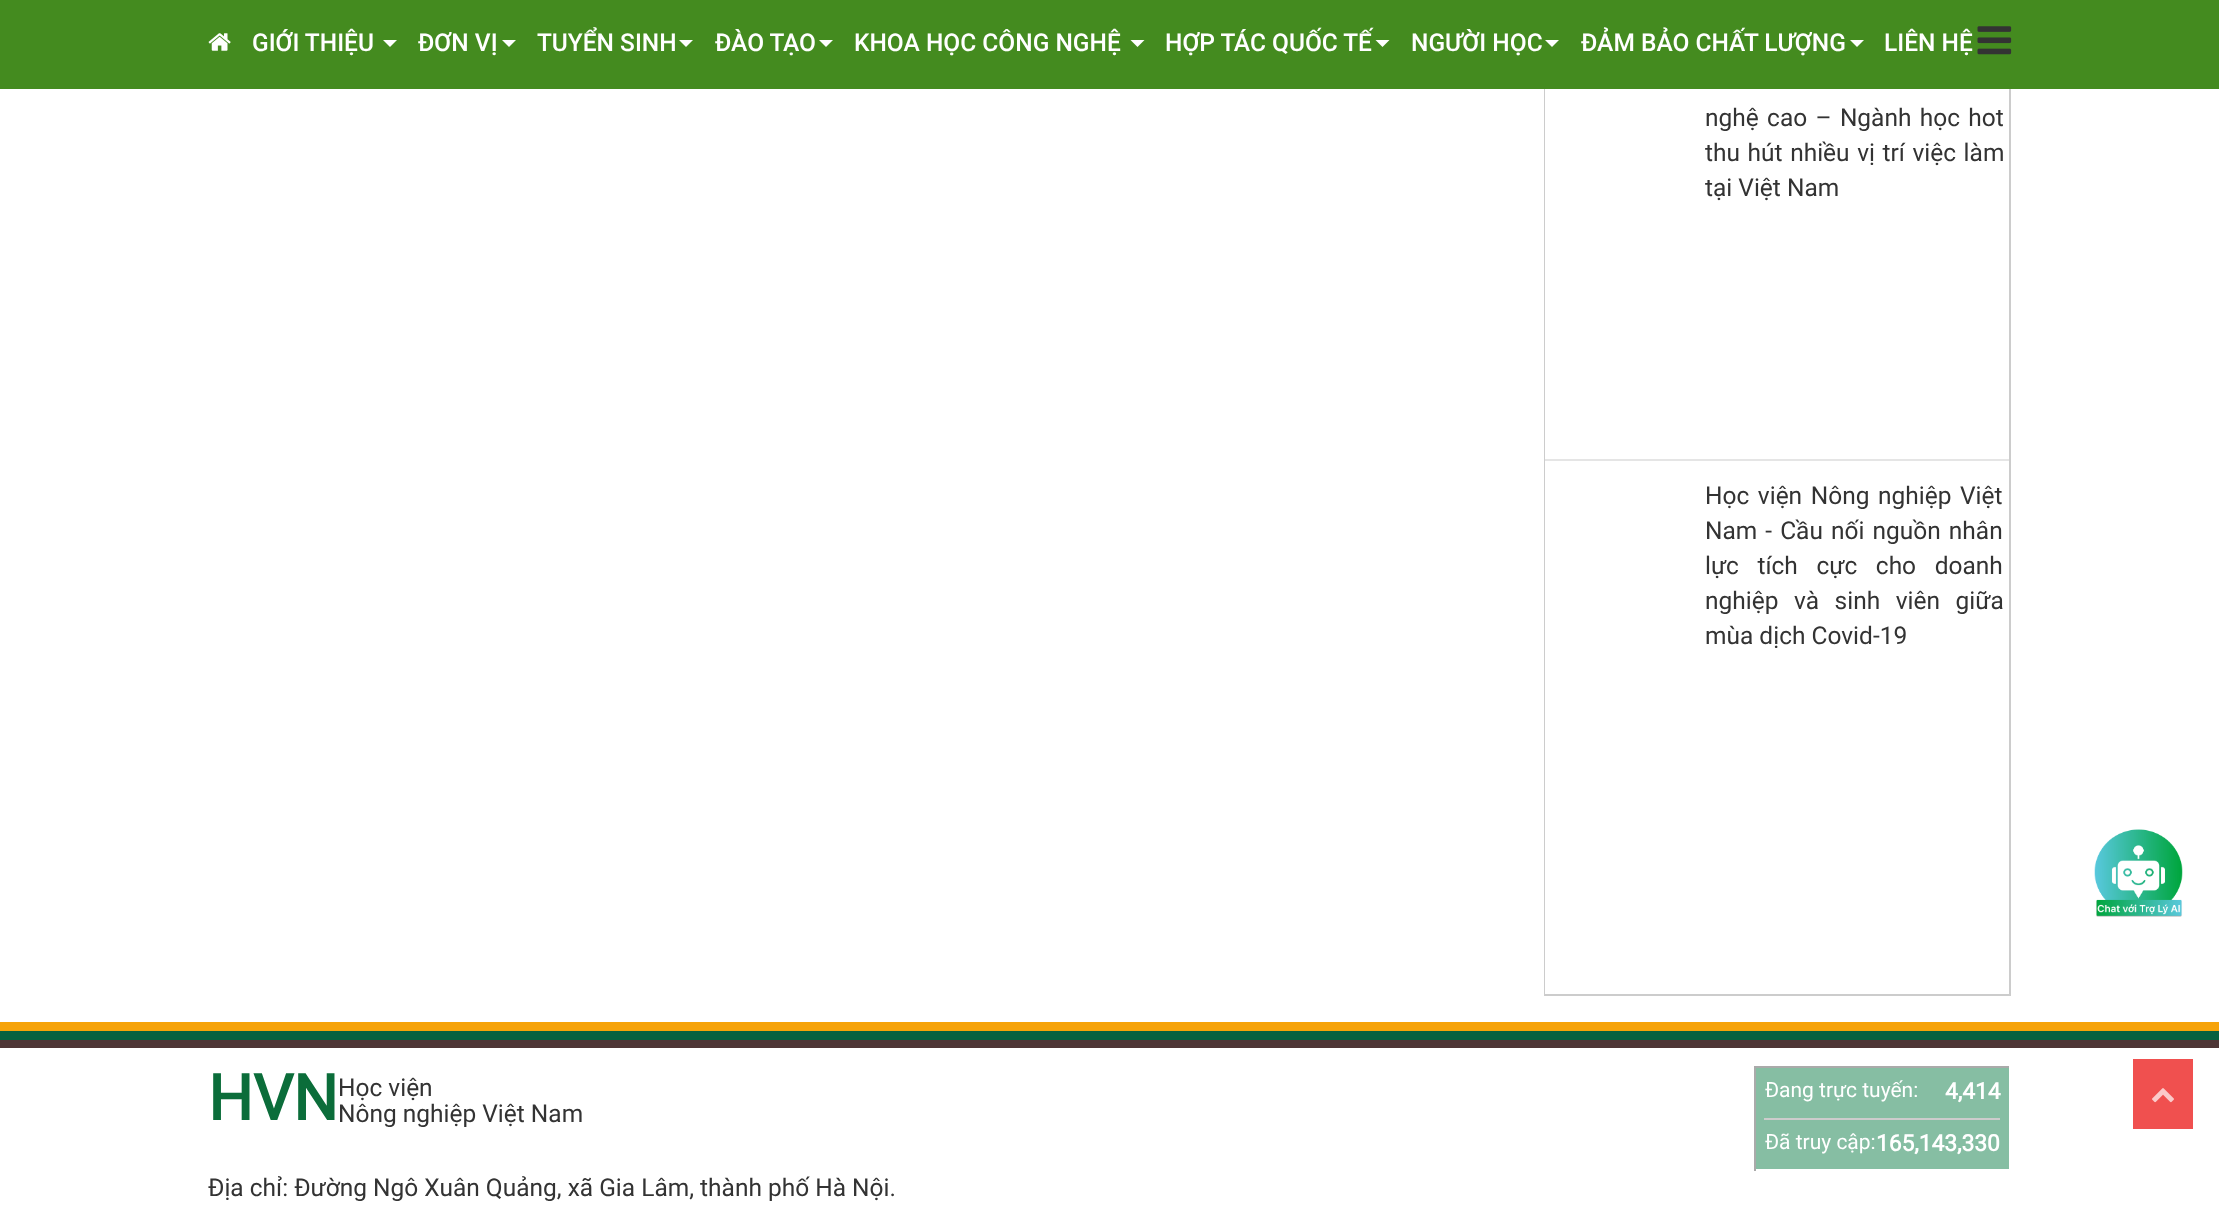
(async () => {
  const canvas = document.querySelector("canvas");
  canvas.width = 2219;
  canvas.height = 1216;
  const ctx = canvas.getContext("2d");
  ctx.miterLimit = 4;
  ctx.fontKerning = "normal";
  async function loadImage(src) {
    const img = new Image();
    img.src = src;
    await img.decode();
    return img;
  }
  let path;

  ctx.fillStyle = "#ffffff";
  ctx.fillRect(0, 0, 2219, 1216);
  ctx.fillStyle = "#cccccc";
  path = new Path2D("M2011-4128V996L2009 994V-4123Z");
  ctx.fill(path);
  ctx.fillRect(1544, 994, 467, 2);
  path = new Path2D("M1544 996V-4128L1545-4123V994Z");
  ctx.fill(path);
  ctx.fillStyle = "#448b1f";
  ctx.fillRect(0, 0, 2219, 89);
  ctx.drawImage(await loadImage("img/1.png"), 208, 33, 23, 18);
  ctx.fillStyle = "#ffffff";
  path = new Path2D("M383 40H397L390 47Z");
  ctx.fill(path);
  path = new Path2D("M502 40H516L509 47Z");
  ctx.fill(path);
  path = new Path2D("M679 40H693L686 47Z");
  ctx.fill(path);
  path = new Path2D("M819 40H833L826 47Z");
  ctx.fill(path);
  path = new Path2D("M1130.5 40H1144.5L1137.5 47Z");
  ctx.fill(path);
  path = new Path2D("M1375.5 40H1389.5L1382.5 47Z");
  ctx.fill(path);
  path = new Path2D("M1545 40H1559L1552 47Z");
  ctx.fill(path);
  path = new Path2D("M1850 40H1864L1857 47Z");
  ctx.fill(path);
  ctx.drawImage(await loadImage("img/2.png"), 1977, 26, 35, 29);
  for (const [x, y, w, h, color] of [
    [1545, 459, 464, 2, "#e5e5e5"],
    [0, 1031, 2219, 9, "#066140"],
    [0, 1022, 2219, 9, "#f6a309"],
    [0, 1040, 2219, 8, "#4e3636"],
    [1756, 1068, 253, 101, "#86bea3"],
    [1754, 1066, 257, 2, "#aaaaaa"],
    [2009, 1066, 2, 2, "#ffffff"],
    [1754, 1066, 2, 105, "#aaaaaa"],
    [1764, 1118, 236, 2, "#cccccc"],
    [2133, 1059, 60, 70, "#f0504f"],
  ]) {
    ctx.fillStyle = color;
    ctx.fillRect(x, y, w, h);
  }
  ctx.drawImage(await loadImage("img/3.png"), 2152, 1088, 22, 15);
  ctx.drawImage(await loadImage("img/4.png"), 2094, 829, 89, 88);
  ctx.font = "500 24.5px Roboto";
  ctx.fillStyle = "#ffffff";
  for (const [text, x, y] of [
    ["GIỚI THIỆU", 252, 51],
    ["ĐƠN VỊ", 418, 51],
    ["TUYỂN SINH", 537, 51],
    ["ĐÀO TẠO", 715, 51],
    ["KHOA HỌC CÔNG NGHỆ", 854, 51],
    ["HỢP TÁC QUỐC TẾ", 1165, 51],
    ["NGƯỜI HỌC", 1411, 51],
    ["ĐẢM BẢO CHẤT LƯỢNG", 1581, 51],
    ["LIÊN HỆ", 1884, 51],
  ]) {
    ctx.fillText(text, x, y);
  }
  ctx.wordSpacing = "2.25px";
  ctx.font = "24.5px Roboto";
  ctx.fillStyle = "#333333";
  ctx.fillText("nghệ cao – Ngành học hot", 1705, 126);
  ctx.wordSpacing = "1.5px";
  ctx.fillText("thu hút nhiều vị trí việc làm", 1705, 161);
  ctx.wordSpacing = "0px";
  ctx.fillText("tại Việt Nam", 1705, 196);
  ctx.wordSpacing = "2.5px";
  ctx.fillText("Học viện Nông nghiệp Việt", 1705, 504);
  ctx.wordSpacing = "2px";
  ctx.fillText("Nam - Cầu nối nguồn nhân", 1705, 539);
  ctx.wordSpacing = "12.5px";
  ctx.fillText("lực tích cực cho doanh", 1705, 574);
  ctx.wordSpacing = "9.5px";
  ctx.fillText("nghiệp và sinh viên giữa", 1705, 609);
  ctx.wordSpacing = "0px";
  ctx.fillText("mùa dịch Covid-19", 1705, 644);
  ctx.font = "bold 63px Roboto";
  ctx.fillStyle = "#0b6d3a";
  ctx.fillText("HVN", 208, 1120);
  ctx.font = "24.5px Roboto";
  ctx.fillStyle = "#333333";
  for (const [text, x, y] of [
    ["Học viện", 338, 1096],
    ["Nông nghiệp Việt Nam", 338, 1122],
    ["Địa chỉ: Đường Ngô Xuân Quảng, xã Gia Lâm, thành phố Hà Nội.", 208, 1196],
  ]) {
    ctx.fillText(text, x, y);
  }
  ctx.font = "21px Roboto";
  ctx.fillStyle = "#ffffff";
  ctx.fillText("Đang trực tuyến:", 1765, 1097);
  ctx.font = "bold 22.75px Roboto";
  ctx.fillText("4,414", 1945, 1099);
  ctx.font = "21px Roboto";
  ctx.fillText("Đã truy cập:", 1765, 1149);
  ctx.font = "bold 22.75px Roboto";
  ctx.fillText("165,143,330", 1876, 1151);
})();
